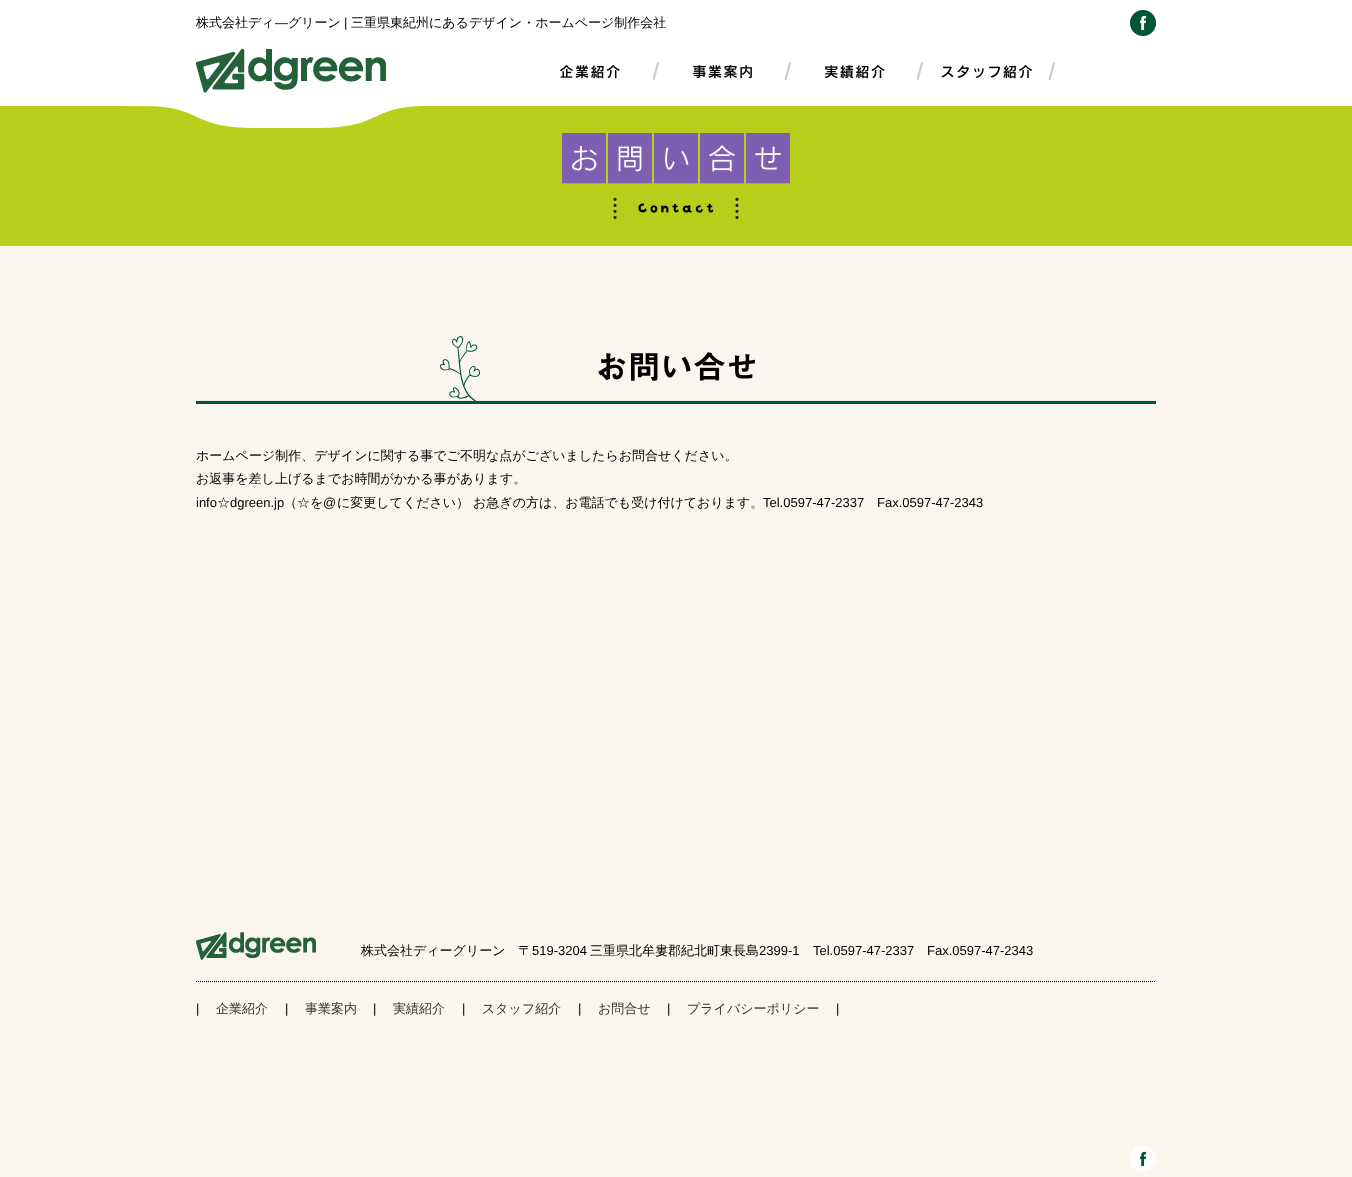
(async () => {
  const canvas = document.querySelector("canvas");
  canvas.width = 1352;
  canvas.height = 1177;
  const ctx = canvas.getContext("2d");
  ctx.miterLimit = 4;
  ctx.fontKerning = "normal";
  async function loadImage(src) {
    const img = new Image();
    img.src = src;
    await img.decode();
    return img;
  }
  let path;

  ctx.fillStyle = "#faf5ed";
  ctx.fillRect(0, 0, 1352, 1177);
  ctx.fillStyle = "#ffffff";
  ctx.fillRect(0, 0, 1352, 106);
  ctx.drawImage(await loadImage("img/1.png"), 1130, 10, 26, 26);
  ctx.drawImage(await loadImage("img/2.png"), 196, 48, 190, 45);
  ctx.drawImage(await loadImage("img/3.png"), 652, 62, 7, 18);
  ctx.drawImage(await loadImage("img/4.png"), 560, 65, 60, 14);
  ctx.drawImage(await loadImage("img/3.png"), 784, 62, 7, 18);
  ctx.drawImage(await loadImage("img/5.png"), 692, 65, 60, 14);
  ctx.drawImage(await loadImage("img/3.png"), 916, 62, 7, 18);
  ctx.drawImage(await loadImage("img/6.png"), 824, 65, 61, 14);
  ctx.drawImage(await loadImage("img/3.png"), 1048, 62, 7, 18);
  ctx.drawImage(await loadImage("img/7.png"), 941, 65, 91, 14);
  ctx.fillStyle = "#b7ce1a";
  ctx.fillRect(0, 106, 1352, 140);
  ctx.drawImage(await loadImage("img/8.png"), 126, 106, 296, 22);
  ctx.drawImage(await loadImage("img/9.png"), 562, 133, 228, 86);
  ctx.drawImage(await loadImage("img/10.png"), 196, 336, 960, 68);
  path = new Path2D("M196 981.5H1156");
  ctx.strokeStyle = "#000000";
  ctx.setLineDash([1, 1]);
  ctx.stroke(path);
  ctx.drawImage(await loadImage("img/11.png"), 196, 932, 120, 28);
  ctx.drawImage(await loadImage("img/12.png"), 1130, 1146, 26, 26);
  ctx.font = "500 13px WenQuanYi Zen Hei";
  ctx.fillStyle = "#000000";
  ctx.fillText("株式会社ディ", 196, 27);
  ctx.font = "13px Liberation Sans";
  ctx.fillText("―", 275, 27);
  ctx.font = "500 13px WenQuanYi Zen Hei";
  ctx.fillText("グリーン", 288, 27);
  ctx.font = "13px Liberation Sans";
  ctx.fillText("|", 344, 27);
  ctx.font = "500 13px WenQuanYi Zen Hei";
  for (const [text, x, y] of [
    ["三重県東紀州にあるデザイン・ホームページ制作会社", 351, 27],
    ["ホームページ制作、デザインに関する事でご不明な点がございましたらお問合せください。", 196, 460],
    ["お返事を差し上げるまでお時間がかかる事があります。", 196, 483],
  ]) {
    ctx.fillText(text, x, y);
  }
  ctx.font = "13px Liberation Sans";
  ctx.fillText("info", 196, 507);
  ctx.font = "500 13px WenQuanYi Zen Hei";
  ctx.fillText("☆", 217, 507);
  ctx.font = "13px Liberation Sans";
  ctx.fillText("dgreen.jp", 230, 507);
  ctx.font = "500 13px WenQuanYi Zen Hei";
  ctx.fillText("（☆を", 284, 507);
  ctx.font = "13px Liberation Sans";
  ctx.fillText("@", 323, 507);
  ctx.font = "500 13px WenQuanYi Zen Hei";
  ctx.fillText("に変更してください） お急ぎの方は、お電話でも受け付けております。", 337, 507);
  ctx.font = "13px Liberation Sans";
  ctx.fillText("Tel.0597-47-2337", 763, 507);
  ctx.fillText("Fax.0597-47-2343", 877, 507);
  ctx.font = "500 13px WenQuanYi Zen Hei";
  ctx.fillText("株式会社ディーグリーン　〒", 361, 955);
  ctx.font = "13px Liberation Sans";
  ctx.fillText("519-3204", 532, 955);
  ctx.font = "500 13px WenQuanYi Zen Hei";
  ctx.fillText("三重県北牟婁郡紀北町東長島", 590, 955);
  ctx.font = "13px Liberation Sans";
  for (const [text, x, y] of [
    ["2399-1", 759, 955],
    ["Tel.0597-47-2337", 813, 955],
    ["Fax.0597-47-2343", 927, 955],
    ["|", 196, 1013],
  ]) {
    ctx.fillText(text, x, y);
  }
  ctx.font = "500 13px WenQuanYi Zen Hei";
  ctx.fillStyle = "#333333";
  ctx.fillText("企業紹介", 216, 1013);
  ctx.font = "13px Liberation Sans";
  ctx.fillStyle = "#000000";
  ctx.fillText("|", 285, 1013);
  ctx.font = "500 13px WenQuanYi Zen Hei";
  ctx.fillStyle = "#333333";
  ctx.fillText("事業案内", 305, 1013);
  ctx.font = "13px Liberation Sans";
  ctx.fillStyle = "#000000";
  ctx.fillText("|", 373, 1013);
  ctx.font = "500 13px WenQuanYi Zen Hei";
  ctx.fillStyle = "#333333";
  ctx.fillText("実績紹介", 393, 1013);
  ctx.font = "13px Liberation Sans";
  ctx.fillStyle = "#000000";
  ctx.fillText("|", 462, 1013);
  ctx.font = "500 13px WenQuanYi Zen Hei";
  ctx.fillStyle = "#333333";
  ctx.fillText("スタッフ紹介", 482, 1013);
  ctx.font = "13px Liberation Sans";
  ctx.fillStyle = "#000000";
  ctx.fillText("|", 578, 1013);
  ctx.font = "500 13px WenQuanYi Zen Hei";
  ctx.fillStyle = "#333333";
  ctx.fillText("お問合せ", 598, 1013);
  ctx.font = "13px Liberation Sans";
  ctx.fillStyle = "#000000";
  ctx.fillText("|", 667, 1013);
  ctx.font = "500 13px WenQuanYi Zen Hei";
  ctx.fillStyle = "#333333";
  ctx.fillText("プライバシーポリシー", 687, 1013);
  ctx.font = "13px Liberation Sans";
  ctx.fillStyle = "#000000";
  ctx.fillText("|", 836, 1013);
})();
